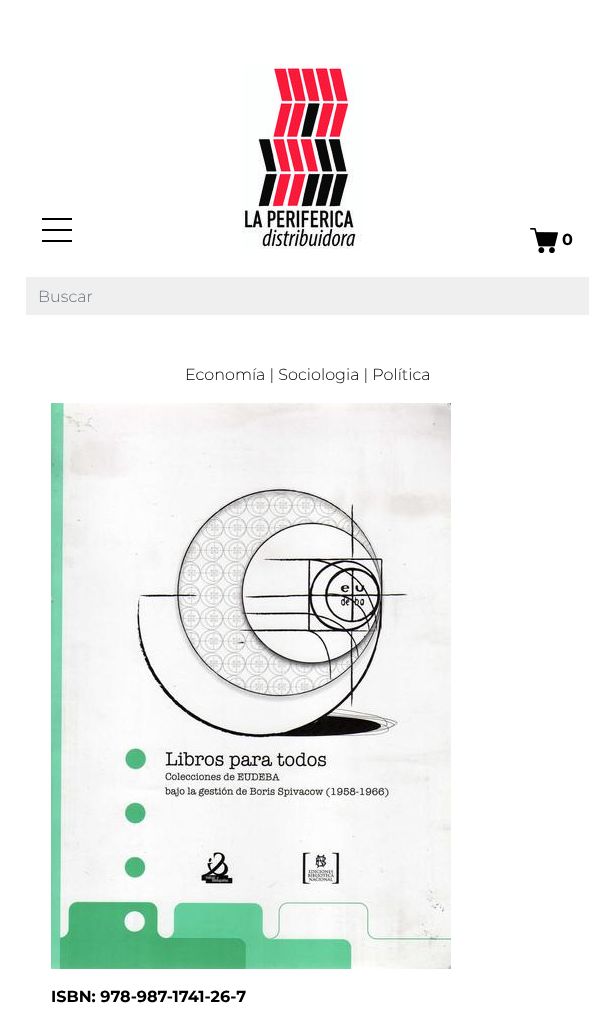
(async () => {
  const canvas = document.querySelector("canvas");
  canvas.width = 615;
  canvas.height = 1012;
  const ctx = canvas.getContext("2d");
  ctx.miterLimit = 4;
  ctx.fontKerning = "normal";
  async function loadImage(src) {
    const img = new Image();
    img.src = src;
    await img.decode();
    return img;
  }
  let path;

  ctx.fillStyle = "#ffffff";
  ctx.fillRect(0, 0, 615, 1012);
  path = new Path2D("M42 219H72M42 230H72M42 241H72");
  ctx.strokeStyle = "#000000";
  ctx.lineWidth = 2;
  ctx.stroke(path);
  ctx.drawImage(await loadImage("img/1.png"), 242, 65, 120, 184);
  ctx.drawImage(await loadImage("img/2.png"), 530, 228, 28, 25);
  ctx.fillStyle = "#efefef";
  ctx.fillRect(26, 277, 563, 38);
  ctx.drawImage(await loadImage("img/3.png"), 51, 403, 400, 566);
  ctx.font = "bold 16px Montserrat";
  ctx.fillStyle = "#000000";
  ctx.fillText("0", 562, 245);
  ctx.font = "300 16px Montserrat";
  ctx.fillStyle = "#6c757d";
  ctx.fillText("Buscar", 38, 302);
  ctx.fillStyle = "#000000";
  ctx.fillText("Economía | Sociologia | Política", 185, 380);
  ctx.font = "bold 16px Montserrat";
  ctx.fillText("ISBN: 978-987-1741-26-7", 51, 1002);
})();
